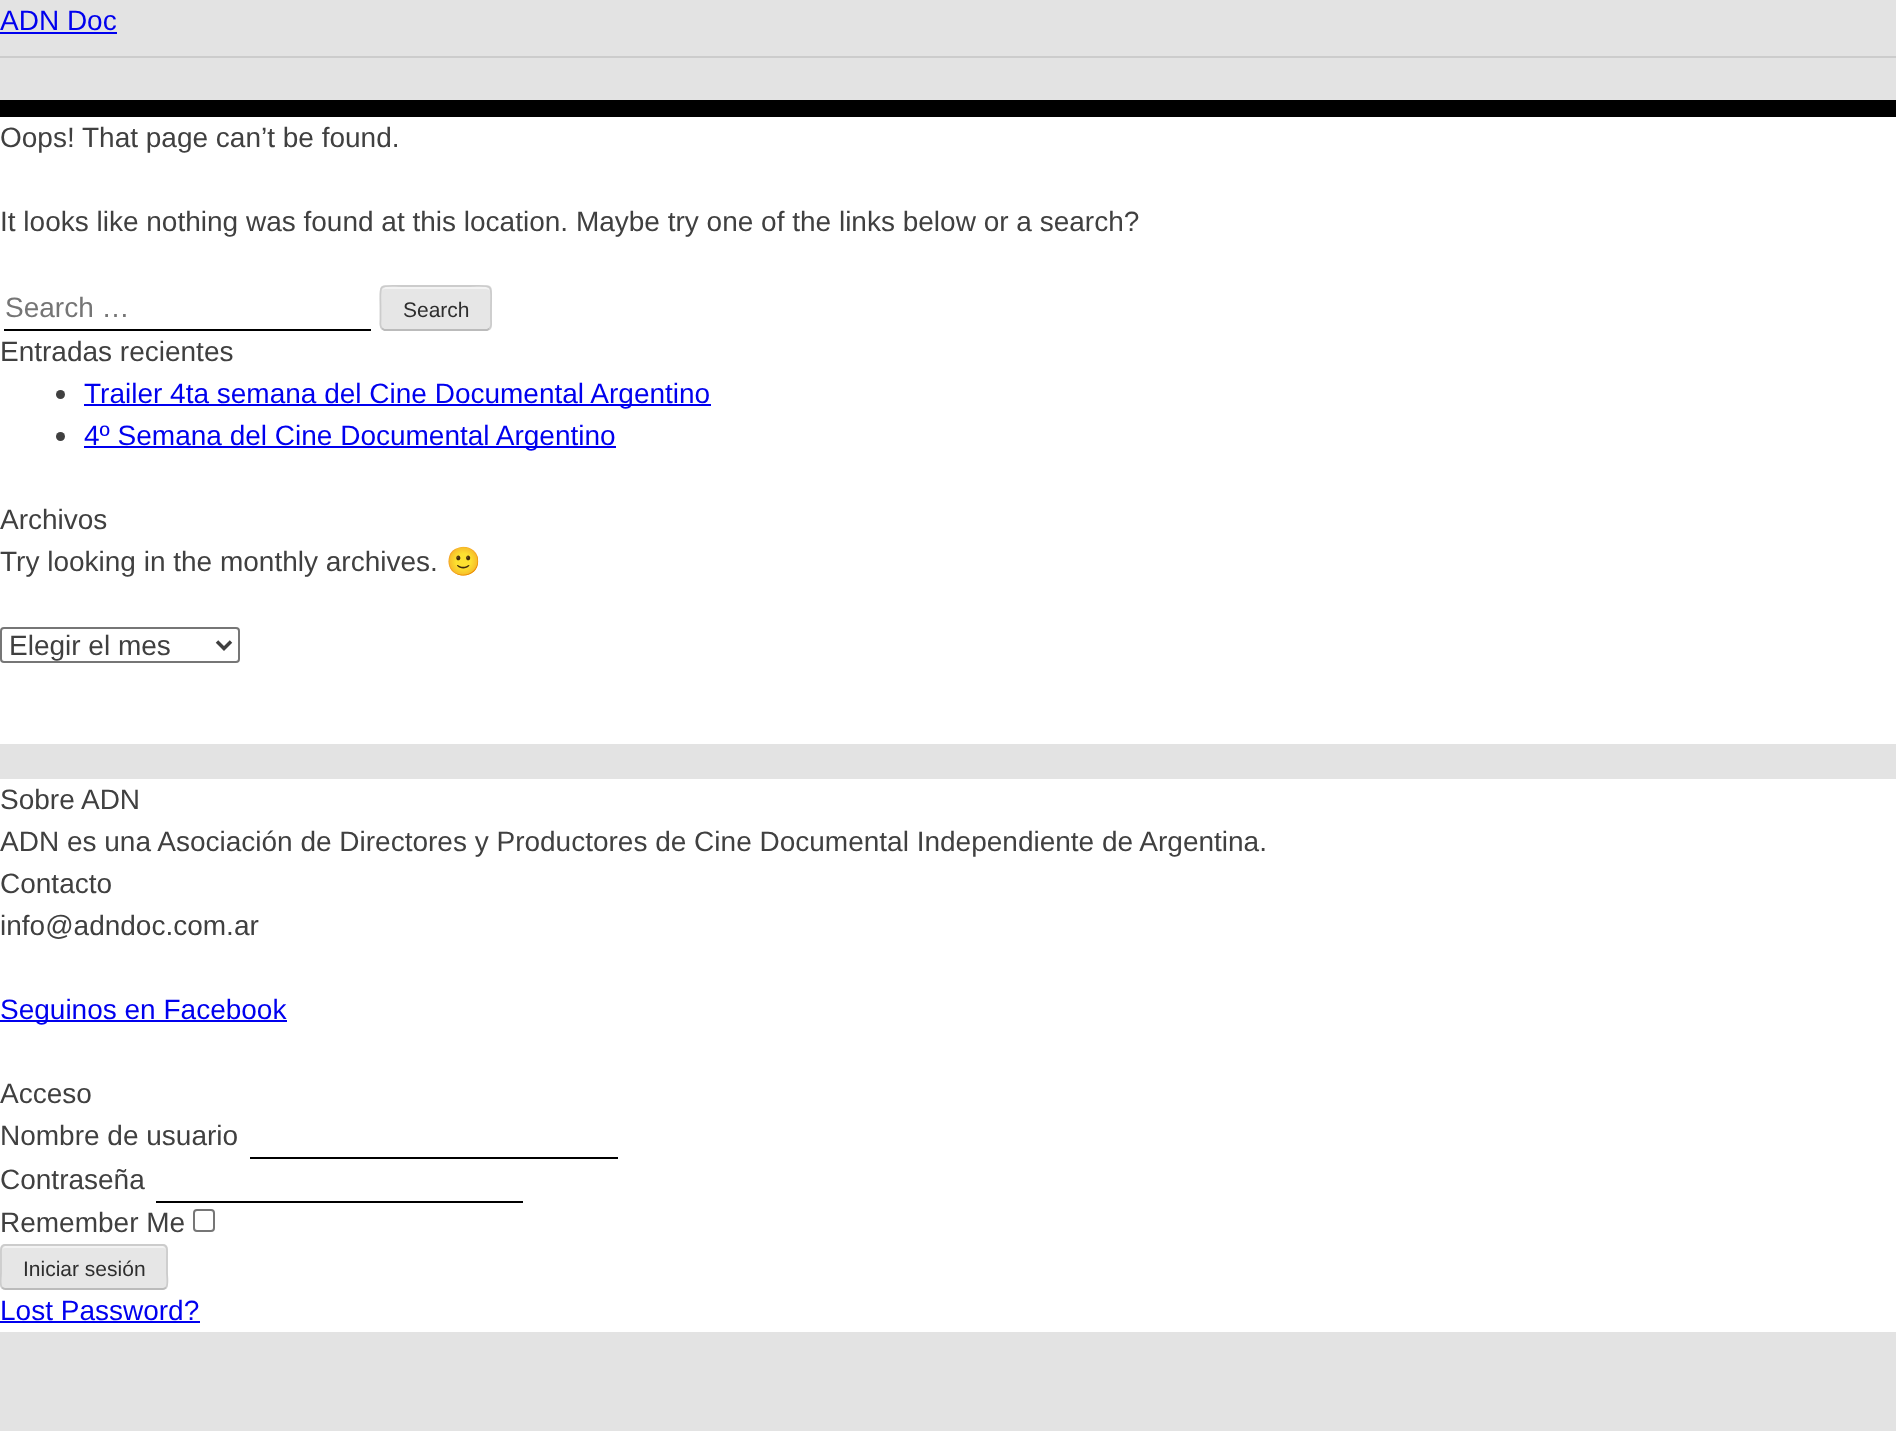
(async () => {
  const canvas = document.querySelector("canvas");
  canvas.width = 1896;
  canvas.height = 1431;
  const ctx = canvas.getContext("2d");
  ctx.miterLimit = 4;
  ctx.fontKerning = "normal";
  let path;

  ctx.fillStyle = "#e3e3e3";
  ctx.fillRect(0, 0, 1896, 1431);
  for (const [x, y, w, h, color] of [
    [0, 32, 117, 2, "#0000ee"],
    [0, 56, 1896, 2, "#cccccc"],
    [0, 117, 1896, 627, "#ffffff"],
    [0, 100, 1896, 17, "#000000"],
    [4, 329, 367, 2, "#000000"],
  ]) {
    ctx.fillStyle = color;
    ctx.fillRect(x, y, w, h);
  }
  ctx.fillStyle = "#e6e6e6";
  ctx.beginPath();
  ctx.roundRect(380, 285, 112, 46, 5);
  ctx.fill();
  ctx.fillStyle = "#f3f3f3";
  path = new Path2D("M385 289H486C488 289 490 290 490 292C490 283 473 287 469 287H403C399 287 382 283 382 292C382 290 383 289 385 289Z");
  ctx.fill(path);
  path = new Path2D("M489.5 328.5L487 330H384.5L382 328.5");
  ctx.strokeStyle = "#bbbbbb";
  ctx.lineWidth = 1.8;
  ctx.stroke(path);
  path = new Path2D("M382 328.5C379.5 326.5 380.5 322 380.5 319.5V308C380.5 283 376.5 286 402 286H469.5C495 286 491 283 491 308V319.5C491 322 492 326.5 489.5 328.5");
  ctx.strokeStyle = "#cccccc";
  ctx.stroke(path);
  ctx.fillStyle = "#404040";
  ctx.beginPath();
  ctx.arc(60.5, 394.5, 4.5, 0, Math.PI * 2);
  ctx.fill();
  ctx.fillStyle = "#0000ee";
  ctx.fillRect(84, 404, 627, 2);
  ctx.fillStyle = "#404040";
  ctx.beginPath();
  ctx.arc(60.5, 436.5, 4.5, 0, Math.PI * 2);
  ctx.fill();
  ctx.fillStyle = "#0000ee";
  ctx.fillRect(84, 446, 532, 2);
  ctx.beginPath();
  ctx.roundRect(1, 628, 238, 34, 3);
  ctx.strokeStyle = "#767676";
  ctx.lineWidth = 2;
  ctx.stroke();
  path = new Path2D("M217 641.5L224 648.5L231 641.5");
  ctx.strokeStyle = "#404040";
  ctx.lineWidth = 3.5;
  ctx.stroke(path);
  for (const [x, y, w, h, color] of [
    [0, 779, 1896, 553, "#ffffff"],
    [0, 1020, 287, 2, "#0000ee"],
    [250, 1157, 368, 2, "#000000"],
    [156, 1201, 367, 2, "#000000"],
  ]) {
    ctx.fillStyle = color;
    ctx.fillRect(x, y, w, h);
  }
  ctx.beginPath();
  ctx.roundRect(194, 1210, 20, 21, 3);
  ctx.strokeStyle = "#767676";
  ctx.lineWidth = 2;
  ctx.stroke();
  ctx.fillStyle = "#e6e6e6";
  ctx.beginPath();
  ctx.roundRect(0, 1244, 168, 46, 5);
  ctx.fill();
  ctx.fillStyle = "#f3f3f3";
  path = new Path2D("M5 1248H163C165 1248 166 1249 166 1251C166 1249 165 1247 163 1246H5C3 1247 2 1249 2 1251C2 1249 3 1248 5 1248Z");
  ctx.fill(path);
  path = new Path2D("M166 1287.5C165 1288.5 164 1289 163 1289H5.5C4 1289 3 1288.5 2 1287.5");
  ctx.strokeStyle = "#bbbbbb";
  ctx.lineWidth = 1.8;
  ctx.stroke(path);
  path = new Path2D("M2 1287.5C-.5 1285 1 1276 1 1273V1255.5C1 1252 0 1245 5 1245H163C168 1245 167 1252 167 1255.5V1273C167 1276 168.5 1285 166 1287.5");
  ctx.strokeStyle = "#cccccc";
  ctx.stroke(path);
  ctx.fillStyle = "#0000ee";
  ctx.fillRect(0, 1321, 200, 2);
  ctx.font = "28px Liberation Sans";
  ctx.fillText("ADN Doc", 0, 30);
  ctx.fillStyle = "#404040";
  ctx.fillText("Oops! That page can’t be found.", 0, 147);
  ctx.fillText("It looks like nothing was found at this location. Maybe try one of the links below or a search?", 0, 231);
  ctx.fillStyle = "#757575";
  ctx.fillText("Search …", 5, 317);
  ctx.font = "21px Liberation Sans";
  ctx.fillStyle = "#2e2e2e";
  ctx.fillText("Search", 403, 317);
  ctx.font = "28px Liberation Sans";
  ctx.fillStyle = "#404040";
  ctx.fillText("Entradas recientes", 0, 361);
  ctx.fillStyle = "#0000ee";
  ctx.fillText("Trailer 4ta semana del Cine Documental Argentino", 84, 403);
  ctx.fillText("4º Semana del Cine Documental Argentino", 84, 445);
  ctx.fillStyle = "#404040";
  ctx.fillText("Archivos", 0, 529);
  ctx.fillText("Try looking in the monthly archives.", 0, 571);
  ctx.font = "28px Noto Color Emoji";
  ctx.fillText("🙂", 446, 571);
  ctx.font = "28px Liberation Sans";
  for (const [text, x, y] of [
    ["Elegir el mes", 9, 655],
    ["Sobre ADN", 0, 809],
    ["ADN es una Asociación de Directores y Productores de Cine Documental Independiente de Argentina.", 0, 851],
    ["Contacto", 0, 893],
    ["info@adndoc.com.ar", 0, 935],
  ]) {
    ctx.fillText(text, x, y);
  }
  ctx.fillStyle = "#0000ee";
  ctx.fillText("Seguinos en Facebook", 0, 1019);
  ctx.fillStyle = "#404040";
  for (const [text, x, y] of [
    ["Acceso", 0, 1103],
    ["Nombre de usuario", 0, 1145],
    ["Contraseña", 0, 1189],
    ["Remember Me", 0, 1232],
  ]) {
    ctx.fillText(text, x, y);
  }
  ctx.font = "21px Liberation Sans";
  ctx.fillStyle = "#2e2e2e";
  ctx.fillText("Iniciar sesión", 23, 1276);
  ctx.font = "28px Liberation Sans";
  ctx.fillStyle = "#0000ee";
  ctx.fillText("Lost Password?", 0, 1320);
})();
